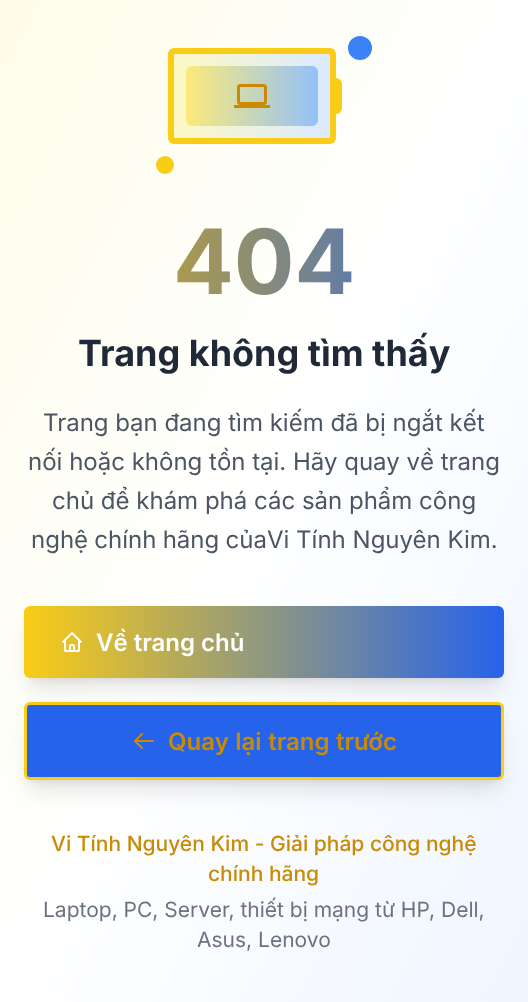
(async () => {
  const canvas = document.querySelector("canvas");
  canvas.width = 528;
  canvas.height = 1002;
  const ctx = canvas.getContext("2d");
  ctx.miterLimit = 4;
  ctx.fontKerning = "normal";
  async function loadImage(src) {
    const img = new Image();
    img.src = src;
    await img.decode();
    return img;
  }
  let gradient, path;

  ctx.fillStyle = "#ffffff";
  ctx.fillRect(0, 0, 528, 1002);
  gradient = ctx.createLinearGradient(-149, 283, 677, 719);
  gradient.addColorStop(0, "#fefce8");
  gradient.addColorStop(0.5, "#ffffff");
  gradient.addColorStop(1, "#eff6ff");
  ctx.fillStyle = gradient;
  ctx.fillRect(0, 0, 528, 1002);
  gradient = ctx.createLinearGradient(174, 96, 330, 96);
  gradient.addColorStop(0, "#fef9c3");
  gradient.addColorStop(1, "#dbeafe");
  ctx.fillStyle = gradient;
  ctx.fillRect(174, 54, 156, 84);
  ctx.beginPath();
  ctx.roundRect(171, 51, 162, 90, 3);
  ctx.strokeStyle = "#facc15";
  ctx.lineWidth = 6;
  ctx.stroke();
  gradient = ctx.createLinearGradient(186, 96, 318, 96);
  gradient.addColorStop(0, "rgba(253, 224, 71, 0.6)");
  gradient.addColorStop(1, "rgba(96, 165, 250, 0.6)");
  ctx.fillStyle = gradient;
  ctx.beginPath();
  ctx.roundRect(186, 66, 132, 60, 6);
  ctx.fill();
  ctx.fillStyle = "#facc15";
  ctx.beginPath();
  ctx.roundRect(330, 78, 12, 36, [0, 6, 6, 0]);
  ctx.fill();
  ctx.drawImage(await loadImage("img/1.png"), 234, 84, 36, 24);
  ctx.fillStyle = "#3b82f6";
  ctx.beginPath();
  ctx.arc(360, 48, 12, 0, Math.PI * 2);
  ctx.fill();
  ctx.fillStyle = "#facc15";
  ctx.beginPath();
  ctx.arc(165, 165, 9, 0, Math.PI * 2);
  ctx.fill();
  ctx.fillStyle = "rgba(0, 0, 0, 0.1)";
  ctx.filter = "blur(4.5px)";
  ctx.beginPath();
  ctx.rect(30, 618, 468, 60);
  ctx.fill();
  ctx.filter = "none";
  ctx.filter = "blur(4.5px)";
  ctx.beginPath();
  ctx.rect(30, 714, 468, 66);
  ctx.fill();
  ctx.filter = "none";
  ctx.filter = "blur(11px)";
  ctx.beginPath();
  ctx.roundRect(29, 722, 471, 69, 1.5);
  ctx.fill();
  ctx.filter = "none";
  ctx.fillStyle = "#2563eb";
  ctx.beginPath();
  ctx.roundRect(25.5, 703.5, 477, 75, 4.5);
  ctx.fill();
  ctx.lineWidth = 3;
  ctx.stroke();
  ctx.fillStyle = "rgba(0, 0, 0, 0.1)";
  ctx.filter = "blur(11px)";
  ctx.beginPath();
  ctx.roundRect(29, 626, 471, 63, 1.5);
  ctx.fill();
  ctx.filter = "none";
  gradient = ctx.createLinearGradient(24, 642, 504, 642);
  gradient.addColorStop(0, "#facc15");
  gradient.addColorStop(1, "#2563eb");
  ctx.fillStyle = gradient;
  ctx.beginPath();
  ctx.roundRect(24, 606, 480, 72, 6);
  ctx.fill();
  ctx.drawImage(await loadImage("img/2.png"), 62, 632, 20, 20);
  path = new Path2D("M142 748L135 741M135 741L142 734M135 741H153");
  ctx.strokeStyle = "#ca8a04";
  ctx.lineWidth = 2;
  ctx.lineCap = "round";
  ctx.lineJoin = "round";
  ctx.stroke(path);
  ctx.font = "bold 90px Inter";
  gradient = ctx.createLinearGradient(24, 261, 504, 261);
  gradient.addColorStop(0, "#eab308");
  gradient.addColorStop(1, "#2563eb");
  ctx.fillStyle = gradient;
  ctx.fillText("404", 173, 294);
  ctx.font = "bold 36px Inter";
  ctx.fillStyle = "#1f2937";
  ctx.fillText("Trang không tìm thấy", 78, 366);
  ctx.font = "24px Inter";
  ctx.fillStyle = "#4b5563";
  for (const [text, x, y] of [
    ["Trang bạn đang tìm kiếm đã bị ngắt kết", 43, 431],
    ["nối hoặc không tồn tại. Hãy quay về trang", 28, 470],
    ["chủ để khám phá các sản phẩm công", 52, 509],
  ]) {
    ctx.fillText(text, x, y);
  }
  ctx.wordSpacing = "-0.5px";
  ctx.fillText("nghệ chính hãng của", 31, 548);
  ctx.wordSpacing = "0px";
  ctx.fillText("Vi Tính Nguyên Kim.", 267, 548);
  ctx.font = "600 24px Inter";
  ctx.fillStyle = "#ffffff";
  ctx.fillText("Về trang chủ", 96, 651);
  ctx.wordSpacing = "0.5px";
  ctx.fillStyle = "#ca8a04";
  ctx.fillText("Quay lại trang trước", 168, 750);
  ctx.wordSpacing = "0px";
  ctx.font = "500 21px Inter";
  ctx.fillText("Vi Tính Nguyên Kim - Giải pháp công nghệ", 51, 851);
  ctx.fillText("chính hãng", 208, 881);
  ctx.font = "21px Inter";
  ctx.fillStyle = "#6b7280";
  ctx.fillText("Laptop, PC, Server, thiết bị mạng từ HP, Dell,", 43, 917);
  ctx.fillText("Asus, Lenovo", 197, 947);
})();
